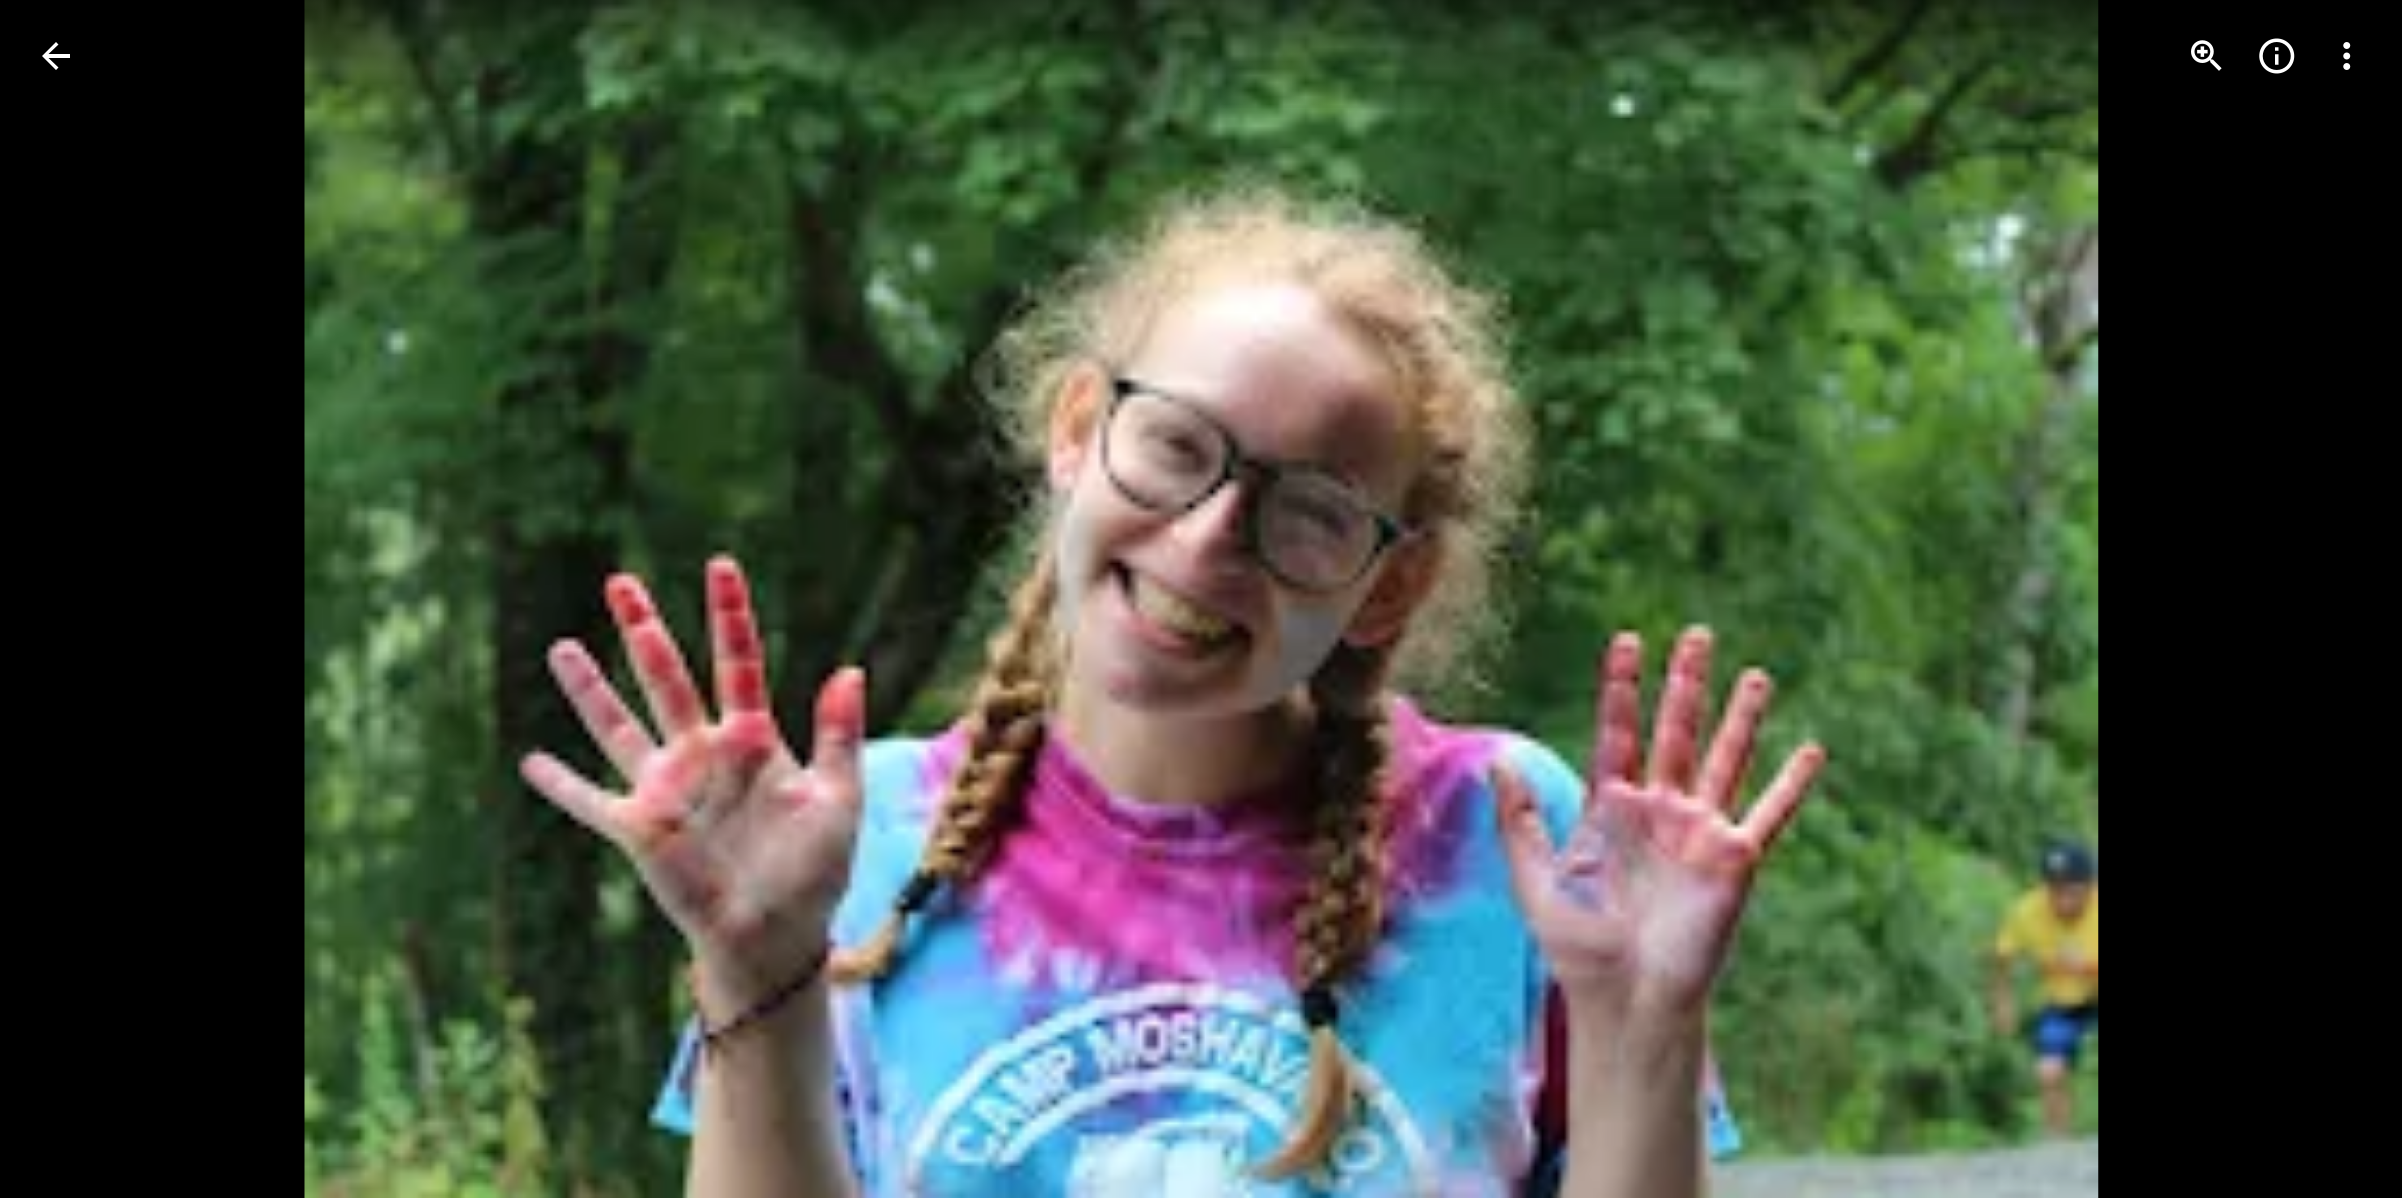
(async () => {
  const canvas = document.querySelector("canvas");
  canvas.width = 2402;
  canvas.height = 1198;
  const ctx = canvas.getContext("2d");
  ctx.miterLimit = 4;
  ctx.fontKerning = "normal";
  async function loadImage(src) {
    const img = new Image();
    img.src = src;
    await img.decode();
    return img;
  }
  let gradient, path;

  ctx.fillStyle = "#000000";
  ctx.fillRect(0, 0, 2402, 1198);
  ctx.drawImage(await loadImage("img/4.png"), 304, 0, 1795, 1198);
  gradient = ctx.createLinearGradient(1201, 0, 1201, 112);
  gradient.addColorStop(0, "rgba(0, 0, 0, 0.6)");
  gradient.addColorStop(1, "rgba(0, 0, 0, 0)");
  ctx.fillStyle = gradient;
  ctx.fillRect(304, 0, 1795, 108);
  ctx.fillStyle = "#ffffff";
  path = new Path2D("M70 54H48.5L58.5 44.5L56 42L42 56L56 70L58.5 67.5L48.5 58H70Z");
  ctx.fill(path);
  ctx.drawImage(await loadImage("img/1.png"), 2191, 40, 31, 31);
  ctx.drawImage(await loadImage("img/2.png"), 2259, 38, 36, 36);
  ctx.drawImage(await loadImage("img/3.png"), 2343, 42, 8, 28);
})();
